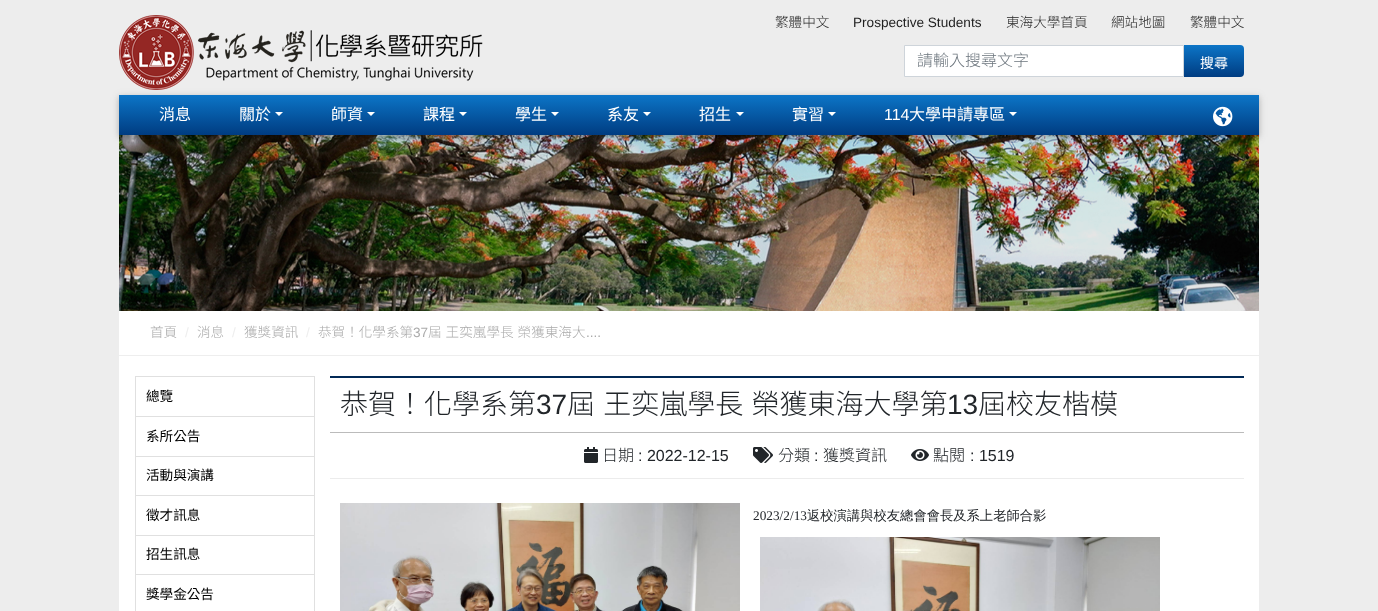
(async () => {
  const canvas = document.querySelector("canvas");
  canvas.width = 1378;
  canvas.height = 611;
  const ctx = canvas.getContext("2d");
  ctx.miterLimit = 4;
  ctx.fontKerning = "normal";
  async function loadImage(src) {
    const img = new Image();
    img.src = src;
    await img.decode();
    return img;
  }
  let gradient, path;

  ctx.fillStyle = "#ededed";
  ctx.fillRect(0, 0, 1378, 611);
  ctx.drawImage(await loadImage("img/1.png"), 119, 15, 364, 75);
  ctx.fillStyle = "#ffffff";
  ctx.beginPath();
  ctx.rect(904.5, 45.5, 279, 31);
  ctx.fill();
  ctx.strokeStyle = "#ced4da";
  ctx.stroke();
  gradient = ctx.createLinearGradient(1214, 45, 1214, 77);
  gradient.addColorStop(0, "#0c75c7");
  gradient.addColorStop(1, "#003c81");
  ctx.fillStyle = gradient;
  ctx.beginPath();
  ctx.roundRect(1184, 45, 60, 32, [0, 4, 4, 0]);
  ctx.fill();
  ctx.drawImage(await loadImage("img/3.png"), 119, 135, 1140, 176);
  ctx.fillStyle = "rgba(0, 0, 0, 0.12)";
  ctx.filter = "blur(5px)";
  ctx.beginPath();
  ctx.rect(119, 97, 1140, 40);
  ctx.fill();
  ctx.filter = "none";
  ctx.fillStyle = "rgba(0, 0, 0, 0.16)";
  ctx.filter = "blur(2.5px)";
  ctx.beginPath();
  ctx.rect(119, 97, 1140, 40);
  ctx.fill();
  ctx.filter = "none";
  gradient = ctx.createLinearGradient(689, 95, 689, 135);
  gradient.addColorStop(0, "#0c75c7");
  gradient.addColorStop(1, "#003c81");
  ctx.fillStyle = gradient;
  ctx.fillRect(119, 95, 1140, 40);
  ctx.fillStyle = "#ffffff";
  path = new Path2D("M275 112H283L279 116Z");
  ctx.fill(path);
  path = new Path2D("M367 112H375L371 116Z");
  ctx.fill(path);
  path = new Path2D("M459 112H467L463 116Z");
  ctx.fill(path);
  path = new Path2D("M551 112H559L555 116Z");
  ctx.fill(path);
  path = new Path2D("M643 112H651L647 116Z");
  ctx.fill(path);
  path = new Path2D("M736 112H744L740 116Z");
  ctx.fill(path);
  path = new Path2D("M828 112H836L832 116Z");
  ctx.fill(path);
  path = new Path2D("M1009 112H1017L1013 116Z");
  ctx.fill(path);
  ctx.drawImage(await loadImage("img/2.png"), 1213, 106, 20, 21);
  ctx.fillRect(119, 311, 1140, 300);
  ctx.fillStyle = "#eeeeee";
  ctx.fillRect(119, 355, 1140, 1);
  ctx.strokeStyle = "#e0e0e0";
  ctx.strokeRect(135.5, 376.5, 179, 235);
  for (const [x, y, w, h, color] of [
    [136, 416, 178, 1, "#e0e0e0"],
    [136, 456, 178, 1, "#e0e0e0"],
    [136, 495, 178, 1, "#e0e0e0"],
    [136, 535, 178, 1, "#e0e0e0"],
    [136, 574, 178, 1, "#e0e0e0"],
    [330, 376, 914, 2, "#012956"],
    [330, 432, 914, 1, "#bbbbbb"],
    [330, 478, 914, 1, "#ececec"],
  ]) {
    ctx.fillStyle = color;
    ctx.fillRect(x, y, w, h);
  }
  ctx.drawImage(await loadImage("img/4.png"), 584, 447, 14, 16);
  ctx.drawImage(await loadImage("img/5.png"), 753, 447, 20, 16);
  ctx.drawImage(await loadImage("img/6.png"), 911, 449, 18, 12);
  ctx.drawImage(await loadImage("img/7.png"), 340, 503, 400, 108);
  ctx.drawImage(await loadImage("img/8.png"), 760, 537, 400, 74);
  ctx.font = "300 13.6px Noto Sans TC";
  ctx.fillStyle = "#1f1f1f";
  ctx.fillText("繁體中文", 775, 27);
  ctx.font = "13.6px Liberation Sans";
  ctx.fillText("Prospective Students", 853, 27);
  ctx.font = "300 13.6px Noto Sans TC";
  for (const [text, x, y] of [
    ["東海大學首頁", 1006, 27],
    ["網站地圖", 1111, 27],
    ["繁體中文", 1190, 27],
  ]) {
    ctx.fillText(text, x, y);
  }
  ctx.font = "300 16px Noto Sans TC";
  ctx.fillStyle = "#6c757d";
  ctx.fillText("請輸入搜尋文字", 917, 66);
  ctx.font = "14px Noto Sans TC";
  ctx.fillStyle = "#ffffff";
  ctx.fillText("搜尋", 1200, 68);
  ctx.font = "16px Noto Sans TC";
  for (const [text, x, y] of [
    ["消息", 159, 120],
    ["關於", 239, 120],
    ["師資", 331, 120],
    ["課程", 423, 120],
    ["學生", 515, 120],
    ["系友", 607, 120],
    ["招生", 699, 120],
    ["實習", 792, 120],
  ]) {
    ctx.fillText(text, x, y);
  }
  ctx.font = "16px Liberation Sans";
  ctx.fillText("114", 884, 120);
  ctx.font = "16px Noto Sans TC";
  ctx.fillText("大學申請專區", 909, 120);
  ctx.font = "300 13.6px Noto Sans TC";
  ctx.fillStyle = "#aaaaaa";
  ctx.fillText("首頁", 150, 337);
  ctx.font = "13.6px Liberation Sans";
  ctx.fillStyle = "#eeeeee";
  ctx.fillText("/", 185, 337);
  ctx.font = "300 13.6px Noto Sans TC";
  ctx.fillStyle = "#aaaaaa";
  ctx.fillText("消息", 197, 337);
  ctx.font = "13.6px Liberation Sans";
  ctx.fillStyle = "#eeeeee";
  ctx.fillText("/", 232, 337);
  ctx.font = "300 13.6px Noto Sans TC";
  ctx.fillStyle = "#aaaaaa";
  ctx.fillText("獲獎資訊", 244, 337);
  ctx.font = "13.6px Liberation Sans";
  ctx.fillStyle = "#eeeeee";
  ctx.fillText("/", 306, 337);
  ctx.font = "300 13.6px Noto Sans TC";
  ctx.fillStyle = "#aaaaaa";
  ctx.fillText("恭賀！化學系第", 318, 337);
  ctx.font = "13.6px Liberation Sans";
  ctx.fillText("37", 413, 337);
  ctx.wordSpacing = "1px";
  ctx.font = "300 13.6px Noto Sans TC";
  ctx.fillText("屆 王奕嵐學長 榮獲東海大", 428, 337);
  ctx.wordSpacing = "0px";
  ctx.font = "13.6px Liberation Sans";
  ctx.fillText("....", 586, 337);
  ctx.font = "13.6px Noto Sans TC";
  ctx.fillStyle = "#000000";
  for (const [text, x, y] of [
    ["總覽", 146, 401],
    ["系所公告", 146, 441],
    ["活動與演講", 146, 480],
    ["徵才訊息", 146, 520],
    ["招生訊息", 146, 559],
    ["獎學金公告", 146, 599],
  ]) {
    ctx.fillText(text, x, y);
  }
  ctx.font = "300 28px Noto Sans TC";
  ctx.fillStyle = "#212529";
  ctx.fillText("恭賀！化學系第", 340, 414);
  ctx.font = "28px Liberation Sans";
  ctx.fillText("37", 536, 414);
  ctx.wordSpacing = "2px";
  ctx.font = "300 28px Noto Sans TC";
  ctx.fillText("屆 王奕嵐學長 榮獲東海大學第", 567, 414);
  ctx.wordSpacing = "0px";
  ctx.font = "28px Liberation Sans";
  ctx.fillText("13", 947, 414);
  ctx.font = "300 28px Noto Sans TC";
  ctx.fillText("屆校友楷模", 978, 414);
  ctx.font = "300 16px Noto Sans TC";
  ctx.fillText("日期", 602, 461);
  ctx.font = "16px Liberation Sans";
  ctx.fillText(": 2022-12-15", 638, 461);
  ctx.font = "300 16px Noto Sans TC";
  ctx.fillText("分類", 778, 461);
  ctx.font = "16px Liberation Sans";
  ctx.fillText(":", 814, 461);
  ctx.font = "300 16px Noto Sans TC";
  ctx.fillText("獲獎資訊", 823, 461);
  ctx.fillText("點閱", 933, 461);
  ctx.font = "16px Liberation Sans";
  ctx.fillText(": 1519", 970, 461);
  ctx.font = "13.3px Liberation Serif";
  ctx.fillText("2023/2/13", 753, 520);
  ctx.font = "500 13.3px WenQuanYi Zen Hei";
  ctx.fillText("返校演講與校友總會會長及系上老師合影", 807, 520);
})();
